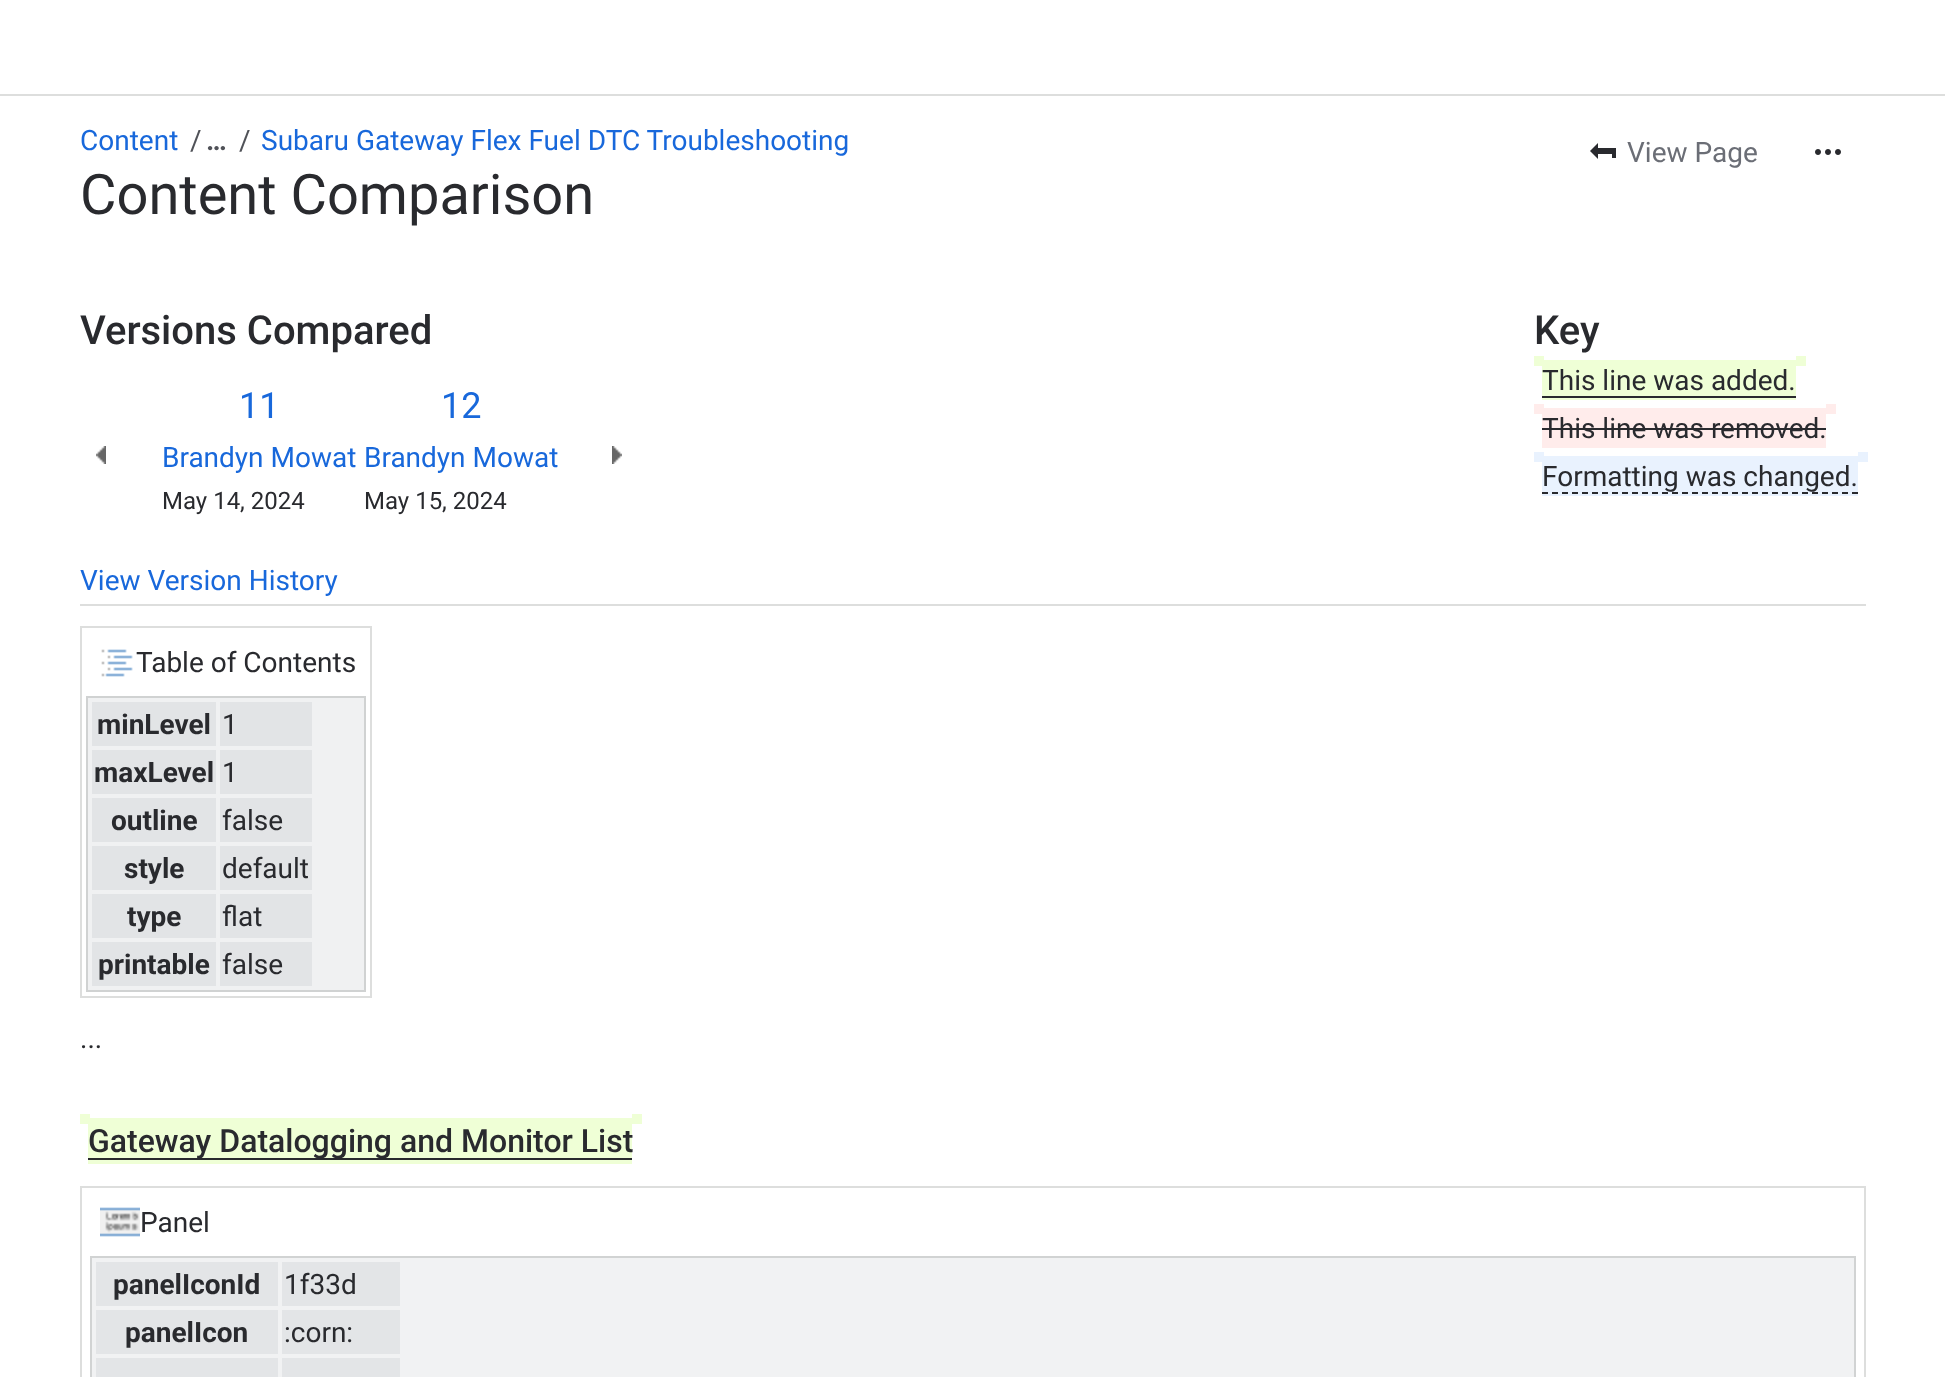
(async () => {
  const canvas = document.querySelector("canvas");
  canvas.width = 1945;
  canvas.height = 1377;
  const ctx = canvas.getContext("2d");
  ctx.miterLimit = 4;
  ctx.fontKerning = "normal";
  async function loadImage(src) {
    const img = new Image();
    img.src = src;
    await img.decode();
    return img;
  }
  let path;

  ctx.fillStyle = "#ffffff";
  ctx.fillRect(0, 0, 1945, 1377);
  ctx.fillStyle = "#dddedd";
  ctx.fillRect(0, 94, 1945, 2);
  ctx.fillStyle = "#292a2e";
  path = new Path2D("M1598 143L1590 151L1598 159V154H1612V158H1616V148H1598Z");
  ctx.fill(path);
  ctx.drawImage(await loadImage("img/1.png"), 1815, 149, 26, 6);
  for (const [x, y, w, h, color] of [
    [80, 604, 1786, 2, "#dddedd"],
    [1534, 356, 10, 10, "#efffd6"],
    [1542, 360, 254, 40, "#efffd6"],
    [1796, 356, 10, 10, "#efffd6"],
    [1542, 396, 254, 2, "#292a2e"],
    [1534, 404, 10, 10, "#ffeceb"],
    [1542, 408, 284, 40, "#ffeceb"],
    [1826, 404, 10, 10, "#ffeceb"],
    [1542, 428, 284, 2, "#292a2e"],
    [1534, 452, 10, 10, "#e9f2fe"],
    [1542, 456, 316, 40, "#e9f2fe"],
    [1858, 452, 10, 10, "#e9f2fe"],
  ]) {
    ctx.fillStyle = color;
    ctx.fillRect(x, y, w, h);
  }
  path = new Path2D("M1542 493H1858");
  ctx.strokeStyle = "#292a2e";
  ctx.lineWidth = 2;
  ctx.setLineDash([6, 4]);
  ctx.stroke(path);
  ctx.drawImage(await loadImage("img/2.png"), 96, 446, 10, 18);
  ctx.drawImage(await loadImage("img/3.png"), 612, 446, 10, 18);
  ctx.strokeStyle = "#dddedd";
  ctx.setLineDash([]);
  ctx.strokeRect(81, 627, 290, 370);
  ctx.drawImage(await loadImage("img/4.png"), 101, 649, 32, 28);
  ctx.fillStyle = "#f0f1f2";
  ctx.beginPath();
  ctx.rect(87, 697, 278, 294);
  ctx.fill();
  ctx.strokeStyle = "#d0d2d2";
  ctx.stroke();
  for (const [x, y, w, h, color] of [
    [92, 702, 124, 44, "#e2e4e6"],
    [220, 702, 92, 44, "#e2e4e6"],
    [92, 750, 124, 44, "#e2e4e6"],
    [220, 750, 92, 44, "#e2e4e6"],
    [92, 798, 124, 44, "#e2e4e6"],
    [220, 798, 92, 44, "#e2e4e6"],
    [92, 846, 124, 44, "#e2e4e6"],
    [220, 846, 92, 44, "#e2e4e6"],
    [92, 894, 124, 44, "#e2e4e6"],
    [220, 894, 92, 44, "#e2e4e6"],
    [92, 942, 124, 44, "#e2e4e6"],
    [220, 942, 92, 44, "#e2e4e6"],
    [80, 1114, 10, 10, "#efffd6"],
    [88, 1118, 544, 46, "#efffd6"],
    [632, 1114, 10, 10, "#efffd6"],
    [88, 1158, 544, 2, "#292a2e"],
  ]) {
    ctx.fillStyle = color;
    ctx.fillRect(x, y, w, h);
  }
  ctx.strokeStyle = "#dddedd";
  ctx.strokeRect(81, 1187, 1784, 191);
  ctx.drawImage(await loadImage("img/5.png"), 100, 1207, 40, 30);
  ctx.fillStyle = "#f1f2f3";
  ctx.beginPath();
  ctx.rect(91, 1257, 1764, 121);
  ctx.fill();
  ctx.strokeStyle = "#d1d3d3";
  ctx.stroke();
  for (const [x, y, w, h, color] of [
    [96, 1262, 182, 44, "#e3e5e7"],
    [282, 1262, 118, 44, "#e3e5e7"],
    [96, 1310, 182, 44, "#e3e5e7"],
    [282, 1310, 118, 44, "#e3e5e7"],
    [96, 1358, 182, 19, "#e3e5e7"],
    [282, 1358, 118, 19, "#e3e5e7"],
  ]) {
    ctx.fillStyle = color;
    ctx.fillRect(x, y, w, h);
  }
  ctx.font = "28px Roboto";
  ctx.fillStyle = "#1868db";
  ctx.fillText("Content", 80, 150);
  ctx.fillStyle = "#505258";
  ctx.fillText("/", 190, 150);
  ctx.font = "bold 28px Roboto";
  ctx.fillText("…", 206, 150);
  ctx.font = "28px Roboto";
  ctx.fillText("/", 239, 150);
  ctx.fillStyle = "#1868db";
  ctx.fillText("Subaru Gateway Flex Fuel DTC Troubleshooting", 261, 150);
  ctx.font = "56px Roboto";
  ctx.fillStyle = "#292a2e";
  ctx.fillText("Content Comparison", 80, 214);
  ctx.font = "28px Roboto";
  ctx.fillStyle = "#6b6e76";
  ctx.fillText("View Page", 1627, 162);
  ctx.font = "500 40px Roboto";
  ctx.fillStyle = "#292a2e";
  ctx.fillText("Versions Compared", 80, 344);
  ctx.fillText("Key", 1534, 344);
  ctx.font = "28px Roboto";
  for (const [text, x, y] of [
    ["This line was added.", 1542, 390],
    ["This line was removed.", 1542, 438],
    ["Formatting was changed.", 1542, 486],
  ]) {
    ctx.fillText(text, x, y);
  }
  ctx.font = "36px Roboto";
  ctx.fillStyle = "#1868db";
  ctx.fillText("11", 239, 418);
  ctx.fillText("12", 441, 418);
  ctx.font = "28px Roboto";
  ctx.fillText("Brandyn Mowat", 162, 467);
  ctx.fillText("Brandyn Mowat", 364, 467);
  ctx.font = "24px Roboto";
  ctx.fillStyle = "#292a2e";
  ctx.fillText("May 14, 2024", 162, 509);
  ctx.fillText("May 15, 2024", 364, 509);
  ctx.font = "28px Roboto";
  ctx.fillStyle = "#1868db";
  ctx.fillText("View Version History", 80, 590);
  ctx.fillStyle = "#292a2e";
  ctx.fillText("Table of Contents", 136, 672);
  ctx.font = "bold 28px Roboto";
  ctx.fillText("minLevel", 97, 734);
  ctx.font = "28px Roboto";
  ctx.fillText("1", 222, 734);
  ctx.font = "bold 28px Roboto";
  ctx.fillText("maxLevel", 94, 782);
  ctx.font = "28px Roboto";
  ctx.fillText("1", 222, 782);
  ctx.font = "bold 28px Roboto";
  ctx.fillText("outline", 111, 830);
  ctx.font = "28px Roboto";
  ctx.fillText("false", 222, 830);
  ctx.font = "bold 28px Roboto";
  ctx.fillText("style", 124, 878);
  ctx.font = "28px Roboto";
  ctx.fillText("default", 222, 878);
  ctx.font = "bold 28px Roboto";
  ctx.fillText("type", 127, 926);
  ctx.font = "28px Roboto";
  ctx.fillText("flat", 222, 926);
  ctx.font = "bold 28px Roboto";
  ctx.fillText("printable", 98, 974);
  ctx.font = "28px Roboto";
  ctx.fillText("false", 222, 974);
  ctx.fillText("...", 80, 1048);
  ctx.font = "500 32px Roboto";
  ctx.fillText("Gateway Datalogging and Monitor List", 88, 1152);
  ctx.font = "28px Roboto";
  ctx.fillText("Panel", 140, 1232);
  ctx.font = "bold 28px Roboto";
  ctx.fillText("panelIconId", 113, 1294);
  ctx.font = "28px Roboto";
  ctx.fillText("1f33d", 284, 1294);
  ctx.font = "bold 28px Roboto";
  ctx.fillText("panelIcon", 125, 1342);
  ctx.font = "28px Roboto";
  ctx.fillText(":corn:", 284, 1342);
})();
